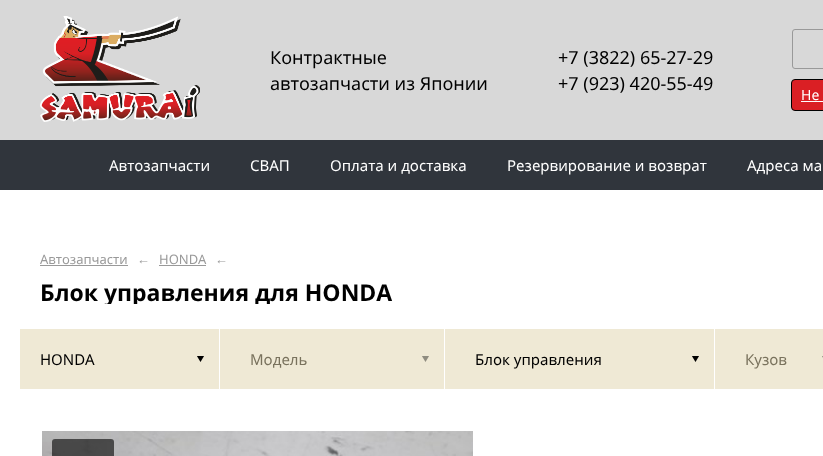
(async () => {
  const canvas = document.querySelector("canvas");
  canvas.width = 823;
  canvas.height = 456;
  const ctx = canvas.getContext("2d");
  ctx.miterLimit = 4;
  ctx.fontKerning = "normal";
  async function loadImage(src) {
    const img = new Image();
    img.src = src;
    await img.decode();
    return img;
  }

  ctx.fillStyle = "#ffffff";
  ctx.fillRect(0, 0, 823, 456);
  ctx.fillStyle = "#d8d8d8";
  ctx.fillRect(0, 0, 823, 140);
  ctx.drawImage(await loadImage("img/1.png"), 40, 16, 160, 106);
  ctx.beginPath();
  ctx.roundRect(792.5, 29.5, 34, 39, 2.5);
  ctx.strokeStyle = "#999999";
  ctx.stroke();
  ctx.fillStyle = "#da1f24";
  ctx.beginPath();
  ctx.roundRect(791.5, 79.5, 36, 31, 3.5);
  ctx.fill();
  ctx.strokeStyle = "#000000";
  ctx.stroke();
  for (const [x, y, w, h, color] of [
    [801, 101, 22, 1, "#ffffff"],
    [0, 140, 823, 50, "#30353c"],
    [40, 265, 88, 1, "#999999"],
    [159, 265, 47, 1, "#999999"],
    [20, 329, 199, 60, "#efe9d5"],
  ]) {
    ctx.fillStyle = color;
    ctx.fillRect(x, y, w, h);
  }
  ctx.drawImage(await loadImage("img/2.png"), 197, 356, 7, 6);
  ctx.fillRect(220, 329, 224, 60);
  ctx.drawImage(await loadImage("img/3.png"), 422, 356, 7, 6);
  ctx.fillRect(445, 329, 269, 60);
  ctx.drawImage(await loadImage("img/2.png"), 692, 356, 7, 6);
  ctx.fillRect(715, 329, 108, 60);
  ctx.drawImage(await loadImage("img/4.png"), 822, 356, 1, 2);
  ctx.drawImage(await loadImage("img/5.png"), 42, 431, 431, 25);
  ctx.fillStyle = "rgba(0, 0, 0, 0.6)";
  ctx.beginPath();
  ctx.roundRect(52, 439, 62, 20, 3);
  ctx.fill();
  ctx.font = "18px Noto Sans";
  ctx.fillStyle = "#000000";
  for (const [text, x, y] of [
    ["Контрактные", 270, 64],
    ["автозапчасти из Японии", 270, 90],
    ["+7 (3822) 65-27-29", 558, 64],
    ["+7 (923) 420-55-49", 558, 90],
  ]) {
    ctx.fillText(text, x, y);
  }
  ctx.font = "14px Noto Sans";
  ctx.fillStyle = "#ffffff";
  ctx.fillText("Не", 801, 100);
  ctx.font = "15px Noto Sans";
  for (const [text, x, y] of [
    ["Автозапчасти", 109, 171],
    ["СВАП", 250, 171],
    ["Оплата и доставка", 330, 171],
    ["Резервирование и возврат", 507, 171],
    ["Адреса ма", 747, 171],
  ]) {
    ctx.fillText(text, x, y);
  }
  ctx.font = "13px Noto Sans";
  ctx.fillStyle = "#999999";
  for (const [text, x, y] of [
    ["Автозапчасти", 40, 264],
    ["←", 137, 264],
    ["HONDA", 159, 264],
    ["←", 215, 264],
  ]) {
    ctx.fillText(text, x, y);
  }
  ctx.save();
  ctx.beginPath();
  ctx.rect(40, 266, 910, 38);
  ctx.clip();
  ctx.font = "bold 23px Noto Sans";
  ctx.fillStyle = "#000000";
  ctx.fillText("Блок управления для HONDA", 40, 301);
  ctx.restore();
  ctx.font = "15px Noto Sans";
  ctx.fillStyle = "#000000";
  ctx.fillText("HONDA", 40, 365);
  ctx.fillStyle = "#79725d";
  ctx.fillText("Модель", 250, 365);
  ctx.fillStyle = "#000000";
  ctx.fillText("Блок управления", 475, 365);
  ctx.fillStyle = "#79725d";
  ctx.fillText("Кузов", 745, 365);
})();
